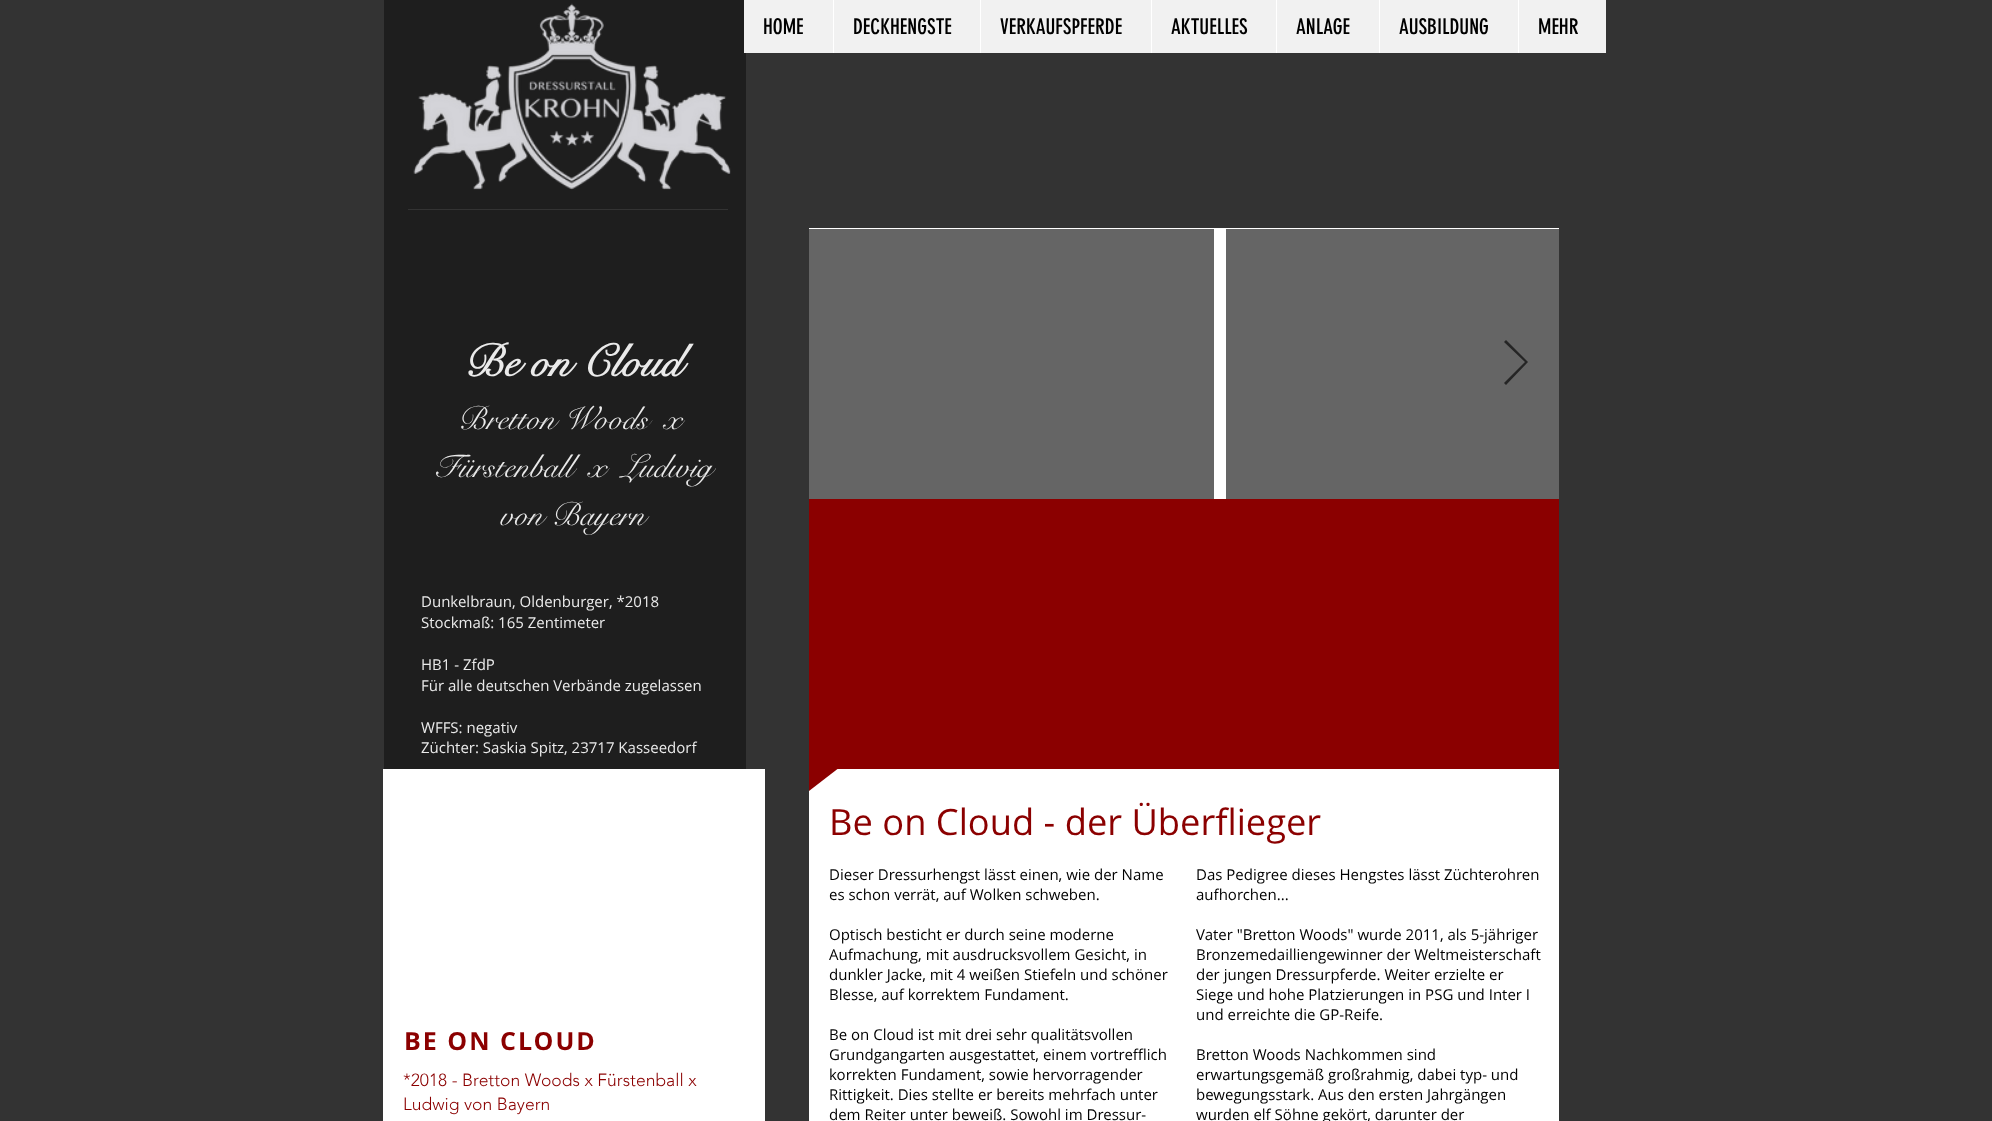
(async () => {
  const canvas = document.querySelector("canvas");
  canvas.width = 1992;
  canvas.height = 1121;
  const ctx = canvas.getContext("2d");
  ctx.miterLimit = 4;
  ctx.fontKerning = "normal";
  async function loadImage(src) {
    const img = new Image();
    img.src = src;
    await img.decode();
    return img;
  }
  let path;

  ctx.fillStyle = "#333333";
  ctx.fillRect(0, 0, 1992, 1121);
  ctx.fillStyle = "#1e1e1e";
  ctx.fillRect(384, 0, 362, 769);
  ctx.drawImage(await loadImage("img/1.png"), 413, 3, 318, 187);
  for (const [x, y, w, h, color] of [
    [408, 209, 320, 1, "#333333"],
    [744, 0, 862, 53, "#f1f1f1"],
    [833, 0, 1, 53, "#ffffff"],
    [980, 0, 1, 53, "#ffffff"],
    [1151, 0, 1, 53, "#ffffff"],
    [1276, 0, 1, 53, "#ffffff"],
    [1379, 0, 1, 53, "#ffffff"],
    [1518, 0, 1, 53, "#ffffff"],
    [383, 769, 382, 352, "#ffffff"],
    [809, 228, 750, 893, "#ffffff"],
    [809, 229, 405, 270, "#656565"],
    [1226, 229, 333, 270, "#656565"],
  ]) {
    ctx.fillStyle = color;
    ctx.fillRect(x, y, w, h);
  }
  ctx.fillStyle = "#252525";
  path = new Path2D("M1504 342L1506 340L1528 362L1506 385L1504 383L1525 362Z");
  ctx.fill(path);
  ctx.fillStyle = "#8b0000";
  ctx.fillRect(809, 499, 750, 270);
  path = new Path2D("M809 769H837.5L809 791Z");
  ctx.fill(path);
  ctx.font = "21.25px 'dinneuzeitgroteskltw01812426'";
  ctx.fillStyle = "#000000";
  for (const [text, x, y] of [
    ["HOME", 763, 34],
    ["DECKHENGSTE", 853, 34],
    ["VERKAUFSPFERDE", 1000, 34],
    ["AKTUELLES", 1171, 34],
    ["ANLAGE", 1296, 34],
    ["AUSBILDUNG", 1399, 34],
    ["MEHR", 1538, 34],
  ]) {
    ctx.fillText(text, x, y);
  }
  ctx.font = "bold 45px 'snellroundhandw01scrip'";
  ctx.fillStyle = "#eaeaea";
  ctx.fillText("Be on Cloud", 464, 376);
  ctx.font = "32.5px 'snellroundhandw01scrip'";
  for (const [text, x, y] of [
    ["Bretton Woods  x", 458, 429],
    ["Fürstenball  x  Ludwig", 434, 477],
    ["von Bayern", 500, 525],
  ]) {
    ctx.fillText(text, x, y);
  }
  ctx.font = "15px Open Sans";
  for (const [text, x, y] of [
    ["Dunkelbraun, Oldenburger, *2018", 421, 607],
    ["Stockmaß: 165 Zentimeter", 421, 628],
    ["HB1 - ZfdP", 421, 670],
    ["Für alle deutschen Verbände zugelassen", 421, 691],
    ["WFFS: negativ", 421, 733],
    ["Züchter: Saskia Spitz, 23717 Kasseedorf", 421, 753],
  ]) {
    ctx.fillText(text, x, y);
  }
  ctx.letterSpacing = "2px";
  ctx.font = "bold 25px Open Sans";
  ctx.fillStyle = "#8b0000";
  ctx.fillText("BE ON CLOUD", 404, 1050);
  ctx.letterSpacing = "0px";
  ctx.font = "300 17.5px 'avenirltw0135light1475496'";
  ctx.fillText("*2018 - Bretton Woods x Fürstenball x", 403, 1086);
  ctx.fillText("Ludwig von Bayern", 403, 1110);
  ctx.font = "36.25px Open Sans";
  ctx.fillText("Be on Cloud - der Überflieger", 829, 835);
  ctx.font = "15px Open Sans";
  ctx.fillStyle = "#000000";
  for (const [text, x, y] of [
    ["Dieser Dressurhengst lässt einen, wie der Name", 829, 880],
    ["es schon verrät, auf Wolken schweben.", 829, 900],
    ["Optisch besticht er durch seine moderne", 829, 940],
    ["Aufmachung, mit ausdrucksvollem Gesicht, in", 829, 960],
    ["dunkler Jacke, mit 4 weißen Stiefeln und schöner", 829, 980],
    ["Blesse, auf korrektem Fundament.", 829, 1000],
    ["Be on Cloud ist mit drei sehr qualitätsvollen", 829, 1040],
    ["Grundgangarten ausgestattet, einem vortrefflich", 829, 1060],
    ["korrekten Fundament, sowie hervorragender", 829, 1080],
    ["Rittigkeit. Dies stellte er bereits mehrfach unter", 829, 1100],
    ["dem Reiter unter beweiß. Sowohl im Dressur-", 829, 1120],
    ["Das Pedigree dieses Hengstes lässt Züchterohren", 1196, 880],
    ["aufhorchen...", 1196, 900],
    ["Vater \"Bretton Woods\" wurde 2011, als 5-jähriger", 1196, 940],
    ["Bronzemedailliengewinner der Weltmeisterschaft", 1196, 960],
    ["der jungen Dressurpferde. Weiter erzielte er", 1196, 980],
    ["Siege und hohe Platzierungen in PSG und Inter I", 1196, 1000],
    ["und erreichte die GP-Reife.", 1196, 1020],
    ["Bretton Woods Nachkommen sind", 1196, 1060],
    ["erwartungsgemäß großrahmig, dabei typ- und", 1196, 1080],
    ["bewegungsstark. Aus den ersten Jahrgängen", 1196, 1100],
    ["wurden elf Söhne gekört, darunter der", 1196, 1120],
  ]) {
    ctx.fillText(text, x, y);
  }
})();
